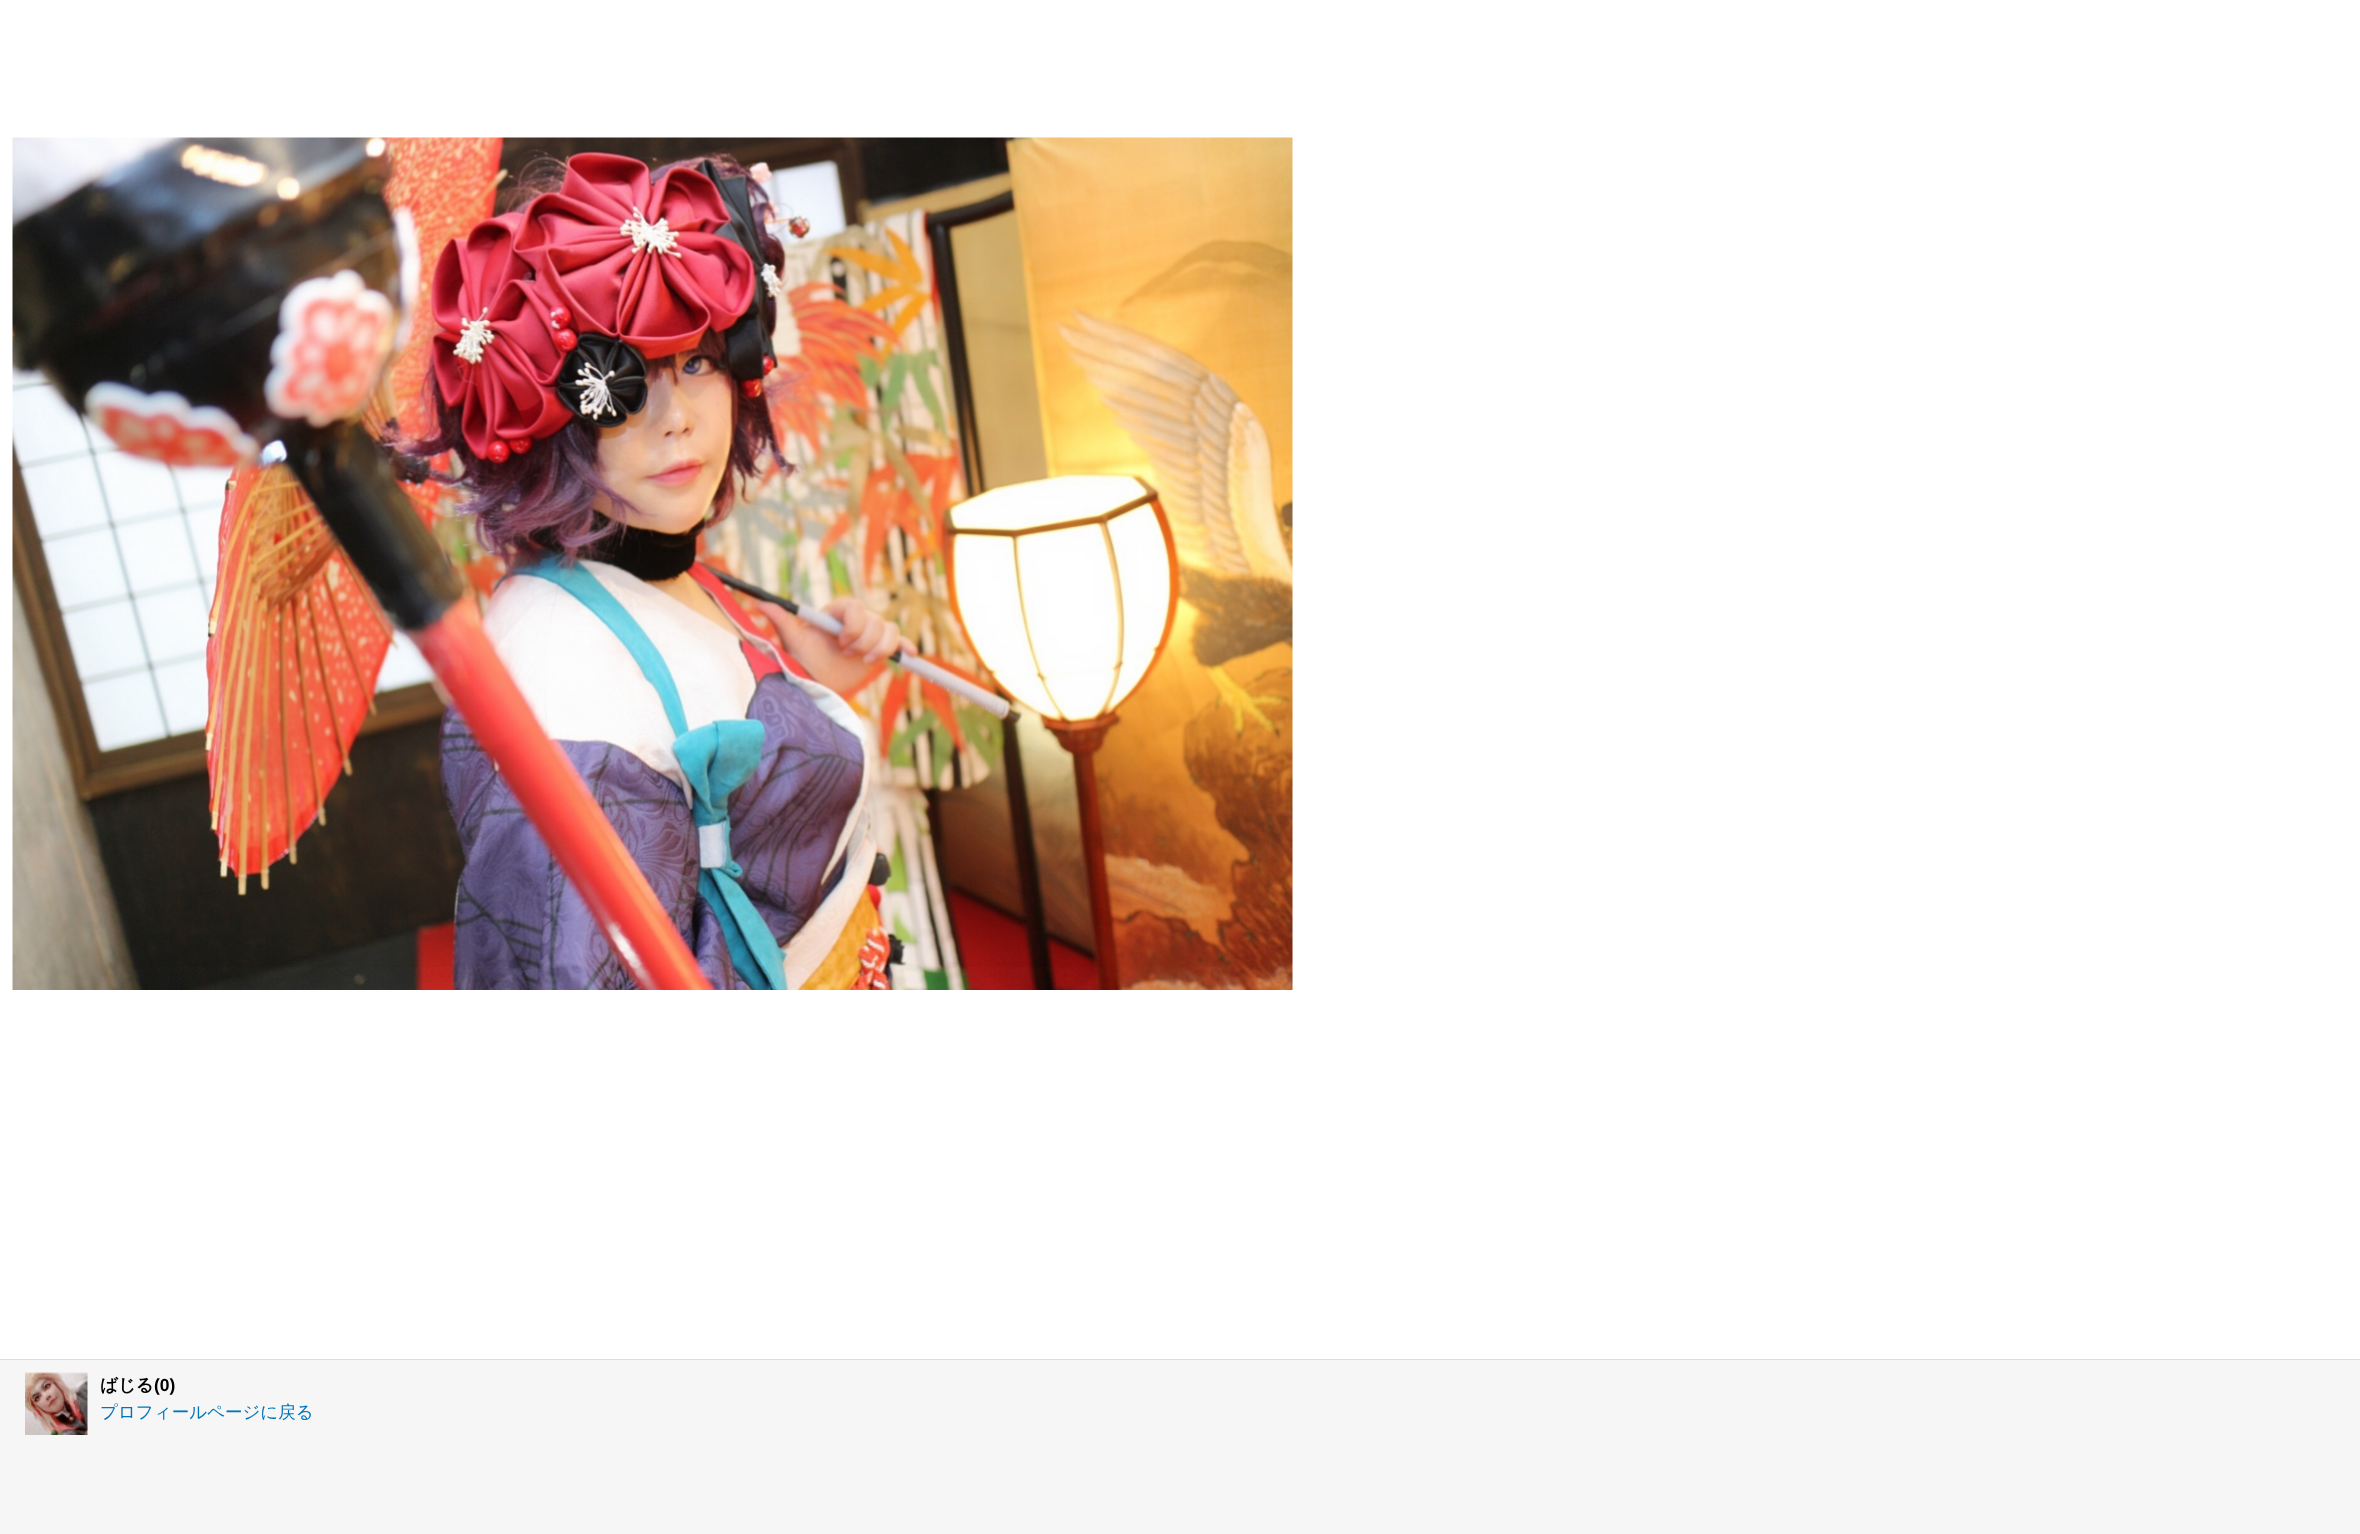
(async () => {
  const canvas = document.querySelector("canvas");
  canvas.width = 2360;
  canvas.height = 1534;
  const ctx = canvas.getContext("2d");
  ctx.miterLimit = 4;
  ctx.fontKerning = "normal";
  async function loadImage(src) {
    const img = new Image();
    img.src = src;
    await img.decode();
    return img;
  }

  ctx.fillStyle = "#ffffff";
  ctx.fillRect(0, 0, 2360, 1534);
  ctx.drawImage(await loadImage("img/1.png"), 12, 137, 1281, 853);
  ctx.fillStyle = "#f6f6f6";
  ctx.fillRect(0, 1360, 2360, 174);
  ctx.fillStyle = "#dddddd";
  ctx.fillRect(0, 1359, 2360, 1);
  ctx.drawImage(await loadImage("img/2.png"), 25, 1372, 63, 63);
  ctx.font = "bold 17.5px WenQuanYi Zen Hei";
  ctx.fillStyle = "#000000";
  ctx.fillText("ばじる", 100, 1391);
  ctx.font = "bold 17.5px Liberation Sans";
  ctx.fillText("(0)", 154, 1391);
  ctx.font = "500 17.5px WenQuanYi Zen Hei";
  ctx.fillStyle = "#0075bb";
  ctx.fillText("プロフィールページに戻る", 100, 1418);
})();
